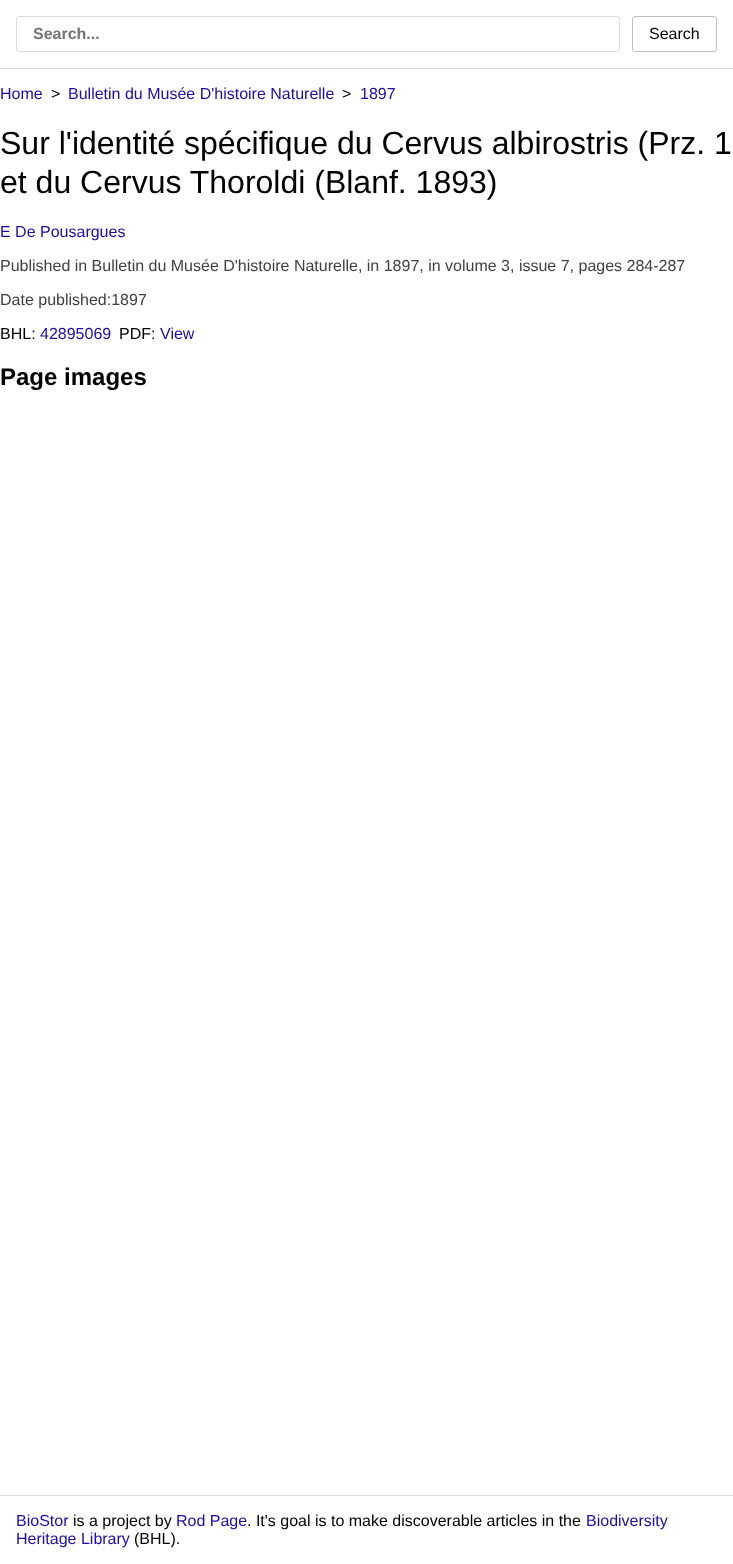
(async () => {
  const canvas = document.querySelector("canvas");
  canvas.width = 733;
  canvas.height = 1564;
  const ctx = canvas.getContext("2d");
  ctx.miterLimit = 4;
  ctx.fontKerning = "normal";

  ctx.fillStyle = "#ffffff";
  ctx.fillRect(0, 0, 733, 1564);
  ctx.fillStyle = "#dedede";
  ctx.fillRect(0, 68, 733, 1);
  ctx.beginPath();
  ctx.roundRect(16.5, 16.5, 603, 35, 2.5);
  ctx.strokeStyle = "#dedede";
  ctx.stroke();
  ctx.beginPath();
  ctx.roundRect(632.5, 16.5, 84, 35, 2.5);
  ctx.strokeStyle = "#c0c0c0";
  ctx.stroke();
  ctx.fillRect(0, 1495, 733, 1);
  ctx.font = "bold 16px Liberation Sans";
  ctx.fillStyle = "#757575";
  ctx.fillText("Search...", 33, 39);
  ctx.font = "16px Liberation Sans";
  ctx.fillStyle = "#000000";
  ctx.fillText("Search", 649, 39);
  ctx.fillStyle = "#1a0dab";
  ctx.fillText("Home", 0, 99);
  ctx.fillStyle = "#000000";
  ctx.fillText(">", 51, 99);
  ctx.fillStyle = "#1a0dab";
  ctx.fillText("Bulletin du Musée D'histoire Naturelle", 68, 99);
  ctx.fillStyle = "#000000";
  ctx.fillText(">", 342, 99);
  ctx.fillStyle = "#1a0dab";
  ctx.fillText("1897", 360, 99);
  ctx.font = "32px Liberation Sans";
  ctx.fillStyle = "#000000";
  ctx.fillText("Sur l'identité spécifique du Cervus albirostris (Prz. 1", 0, 154);
  ctx.fillText("et du Cervus Thoroldi (Blanf. 1893)", 0, 193);
  ctx.font = "16px Liberation Sans";
  ctx.fillStyle = "#1a0dab";
  ctx.fillText("E De Pousargues", 0, 237);
  ctx.fillStyle = "#404040";
  ctx.fillText("Published in Bulletin du Musée D'histoire Naturelle, in 1897, in volume 3, issue 7, pages 284-287", 0, 271);
  ctx.fillText("Date published:1897", 0, 305);
  ctx.fillStyle = "#000000";
  ctx.fillText("BHL:", 0, 339);
  ctx.fillStyle = "#1a0dab";
  ctx.fillText("42895069", 40, 339);
  ctx.fillStyle = "#000000";
  ctx.fillText("PDF:", 119, 339);
  ctx.fillStyle = "#1a0dab";
  ctx.fillText("View", 160, 339);
  ctx.font = "bold 24px Liberation Sans";
  ctx.fillStyle = "#000000";
  ctx.fillText("Page images", 0, 385);
  ctx.font = "16px Liberation Sans";
  ctx.fillStyle = "#1a0dab";
  ctx.fillText("BioStor", 16, 1526);
  ctx.fillStyle = "#000000";
  ctx.fillText("is a project by", 73, 1526);
  ctx.fillStyle = "#1a0dab";
  ctx.fillText("Rod Page", 176, 1526);
  ctx.fillStyle = "#000000";
  ctx.fillText(". It's goal is to make discoverable articles in the", 247, 1526);
  ctx.fillStyle = "#1a0dab";
  ctx.fillText("Biodiversity", 586, 1526);
  ctx.fillText("Heritage Library", 16, 1544);
  ctx.fillStyle = "#000000";
  ctx.fillText("(BHL).", 134, 1544);
})();
